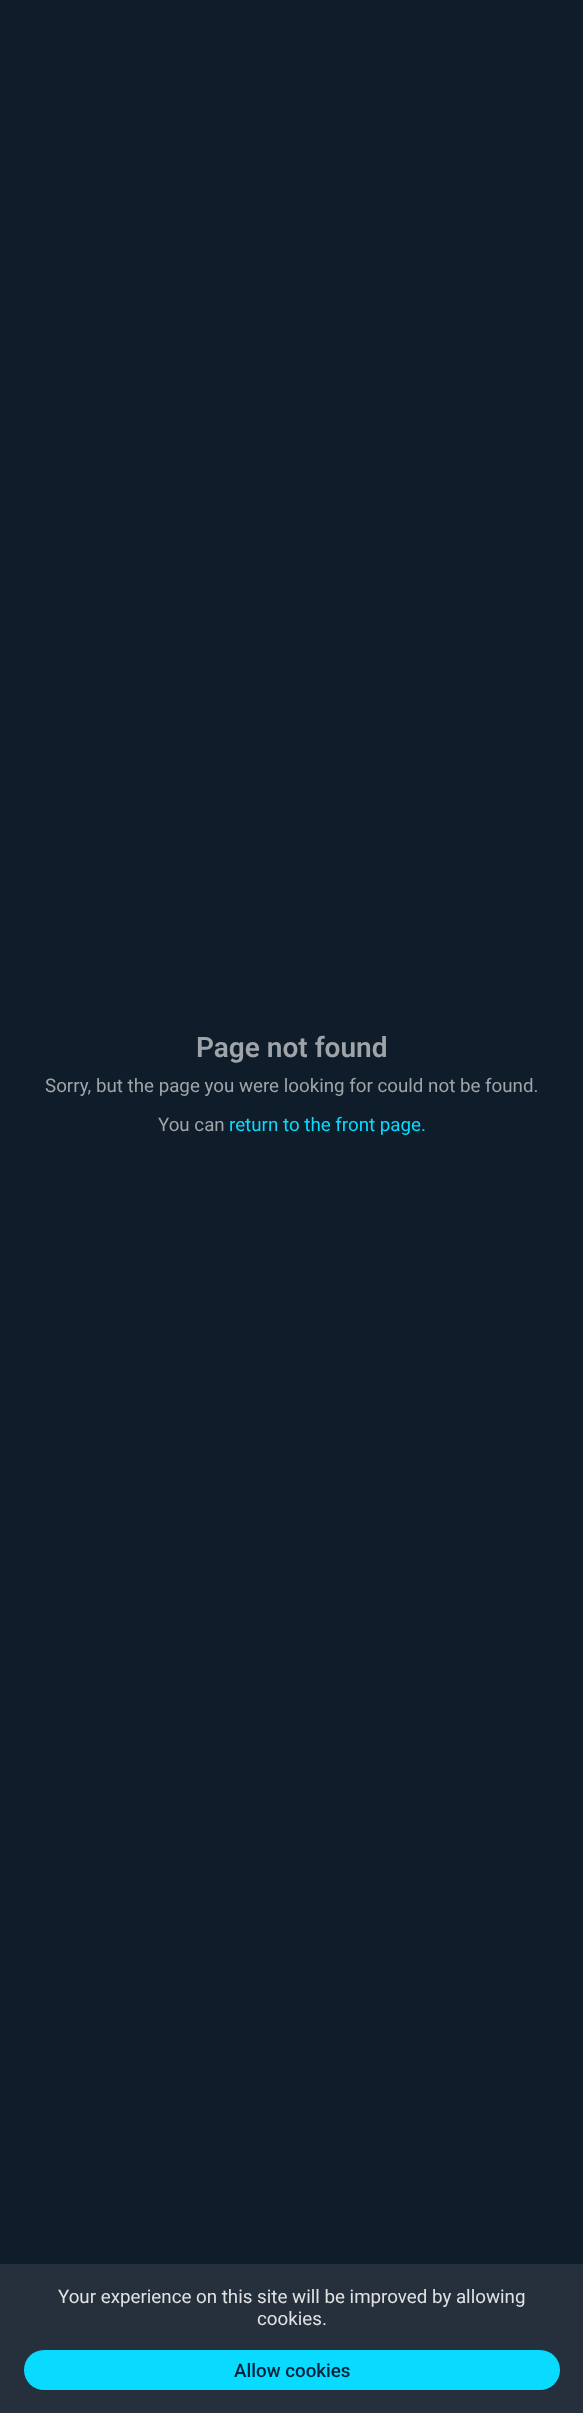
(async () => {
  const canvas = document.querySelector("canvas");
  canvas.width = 583;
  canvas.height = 2413;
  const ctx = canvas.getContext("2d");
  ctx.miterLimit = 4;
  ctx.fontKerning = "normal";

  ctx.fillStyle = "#0f1c29";
  ctx.fillRect(0, 0, 583, 2413);
  ctx.fillStyle = "#25303c";
  ctx.fillRect(0, 2264, 583, 149);
  ctx.fillStyle = "#08dbff";
  ctx.beginPath();
  ctx.roundRect(24, 2350, 536, 40, 20);
  ctx.fill();
  ctx.font = "600 28px Roboto";
  ctx.fillStyle = "#9fa4a9";
  ctx.fillText("Page not found", 196, 1057);
  ctx.font = "18.75px Roboto";
  ctx.fillText("Sorry, but the page you were looking for could not be found.", 45, 1092);
  ctx.fillText("You can", 158, 1131);
  ctx.fillStyle = "#08dbff";
  ctx.fillText("return to the front page.", 229, 1131);
  ctx.fillStyle = "#e0e1e3";
  ctx.fillText("Your experience on this site will be improved by allowing", 58, 2303);
  ctx.fillText("cookies.", 257, 2325);
  ctx.font = "500 18.75px Roboto";
  ctx.fillStyle = "#00233e";
  ctx.fillText("Allow cookies", 234, 2377);
})();
